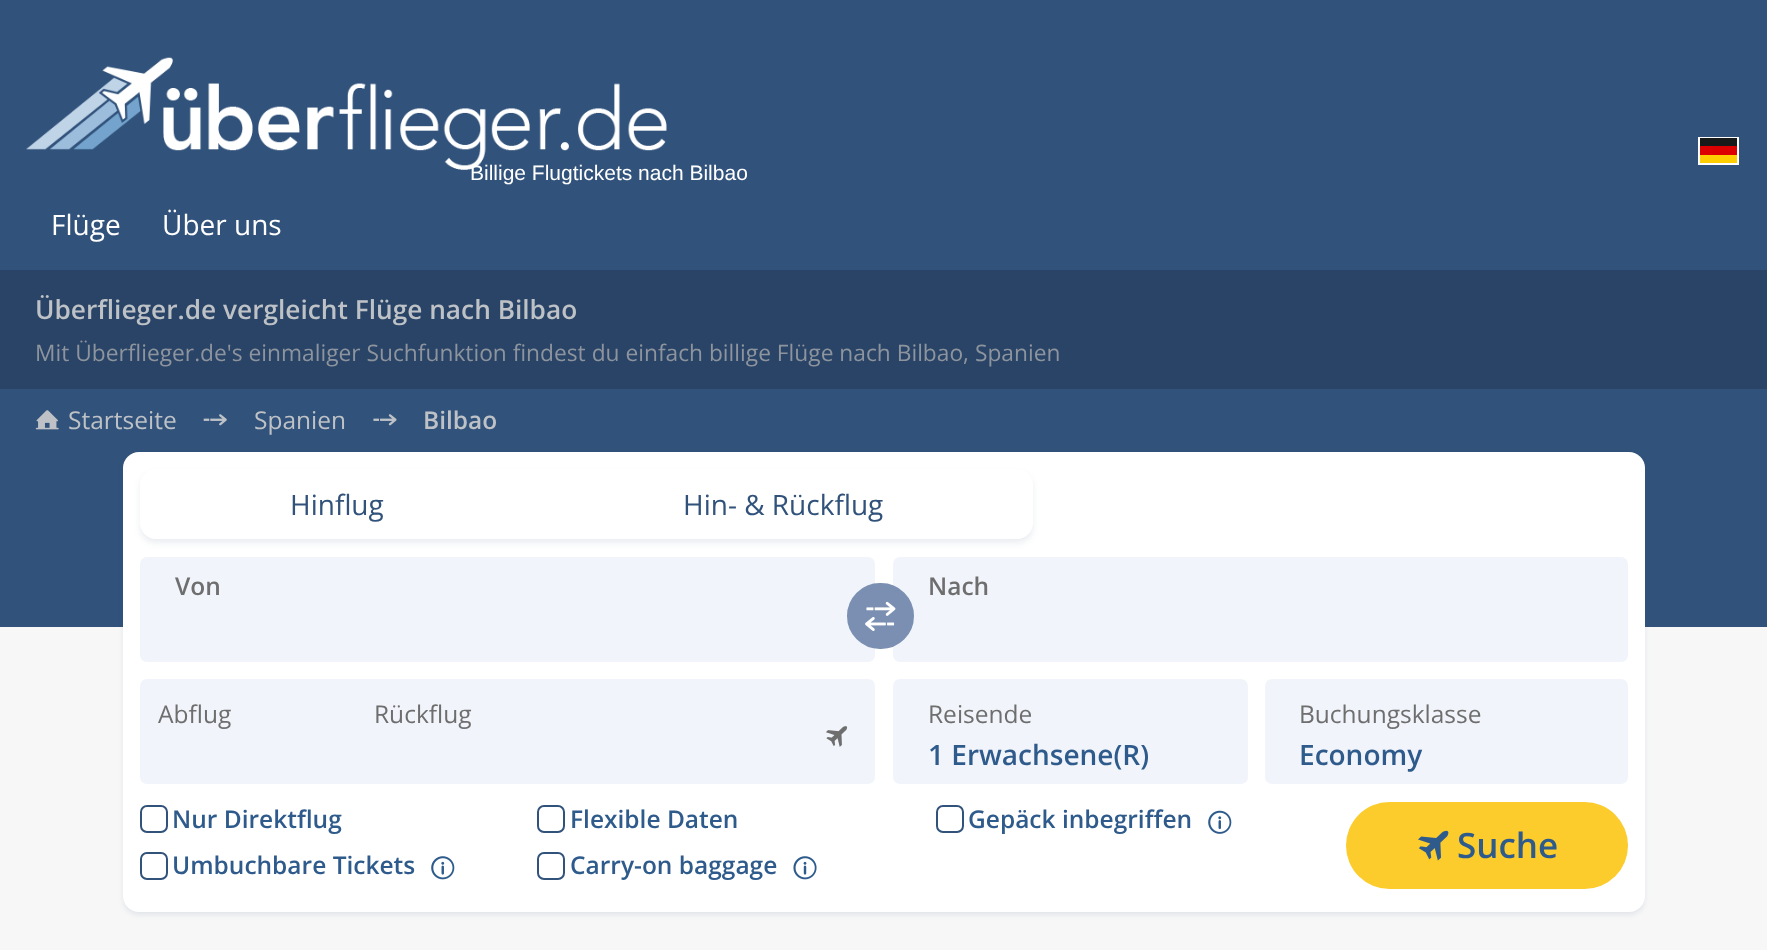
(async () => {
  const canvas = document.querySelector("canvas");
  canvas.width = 1767;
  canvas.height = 950;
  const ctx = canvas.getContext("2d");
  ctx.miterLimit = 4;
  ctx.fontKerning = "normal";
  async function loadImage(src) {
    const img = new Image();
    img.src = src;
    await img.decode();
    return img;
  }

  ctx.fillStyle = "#f7f7f7";
  ctx.fillRect(0, 0, 1767, 950);
  for (const [x, y, w, h, color] of [
    [0, 0, 1767, 627, "#31527a"],
    [1698, 137, 41, 28, "#ffffff"],
    [1700, 155, 37, 8, "#ffce00"],
    [1700, 138, 37, 8, "#181a1a"],
    [1700, 146, 37, 9, "#dd0000"],
  ]) {
    ctx.fillStyle = color;
    ctx.fillRect(x, y, w, h);
  }
  ctx.drawImage(await loadImage("img/1.png"), 26, 57, 641, 113);
  ctx.fillStyle = "#294466";
  ctx.fillRect(0, 270, 1767, 119);
  ctx.drawImage(await loadImage("img/2.png"), 35, 410, 24, 20);
  ctx.drawImage(await loadImage("img/3.png"), 203, 414, 24, 12);
  ctx.drawImage(await loadImage("img/4.png"), 373, 414, 24, 12);
  ctx.fillStyle = "rgba(49, 82, 122, 0.1)";
  ctx.filter = "blur(2.5px)";
  ctx.beginPath();
  ctx.roundRect(123, 455, 1522, 460, 16);
  ctx.fill();
  ctx.filter = "none";
  ctx.fillStyle = "#ffffff";
  ctx.beginPath();
  ctx.roundRect(123, 452, 1522, 460, 16);
  ctx.fill();
  ctx.fillStyle = "rgba(49, 82, 122, 0.1)";
  ctx.filter = "blur(3px)";
  ctx.beginPath();
  ctx.roundRect(140, 473, 893, 70, 16);
  ctx.fill();
  ctx.filter = "none";
  ctx.fillStyle = "#ffffff";
  ctx.beginPath();
  ctx.roundRect(140, 469, 394, 70, [16, 0, 0, 16]);
  ctx.fill();
  ctx.beginPath();
  ctx.roundRect(534, 469, 499, 70, [0, 16, 16, 0]);
  ctx.fill();
  ctx.fillStyle = "#f1f4fa";
  ctx.beginPath();
  ctx.roundRect(140, 557, 735, 105, 7);
  ctx.fill();
  ctx.beginPath();
  ctx.roundRect(893, 557, 735, 105, 7);
  ctx.fill();
  ctx.fillStyle = "#7a8fb2";
  ctx.beginPath();
  ctx.roundRect(849, 585, 63, 62, 31);
  ctx.fill();
  ctx.strokeStyle = "#7a8fb2";
  ctx.lineWidth = 4;
  ctx.stroke();
  ctx.drawImage(await loadImage("img/5.png"), 865, 601, 31, 30);
  ctx.fillStyle = "#f1f4fa";
  ctx.beginPath();
  ctx.roundRect(140, 679, 735, 105, 7);
  ctx.fill();
  ctx.drawImage(await loadImage("img/6.png"), 826, 726, 22, 21);
  ctx.beginPath();
  ctx.roundRect(893, 679, 355, 105, 7);
  ctx.fill();
  ctx.beginPath();
  ctx.roundRect(1265, 679, 363, 105, 7);
  ctx.fill();
  ctx.beginPath();
  ctx.roundRect(141, 806, 26, 26, 6);
  ctx.strokeStyle = "#31527a";
  ctx.lineWidth = 2;
  ctx.stroke();
  ctx.beginPath();
  ctx.roundRect(538, 806, 26, 26, 6);
  ctx.stroke();
  ctx.beginPath();
  ctx.roundRect(937, 806, 26, 26, 6);
  ctx.stroke();
  ctx.drawImage(await loadImage("img/7.png"), 1208, 810, 24, 24);
  ctx.beginPath();
  ctx.roundRect(141, 853, 26, 26, 6);
  ctx.stroke();
  ctx.drawImage(await loadImage("img/8.png"), 431, 856, 24, 24);
  ctx.beginPath();
  ctx.roundRect(538, 853, 26, 26, 6);
  ctx.stroke();
  ctx.drawImage(await loadImage("img/9.png"), 793, 856, 24, 24);
  ctx.fillStyle = "#fbcc2c";
  ctx.beginPath();
  ctx.roundRect(1346, 802, 282, 87, 43.5);
  ctx.fill();
  ctx.drawImage(await loadImage("img/10.png"), 1418, 830, 31, 31);
  ctx.font = "21px Liberation Sans";
  ctx.fillStyle = "#ffffff";
  ctx.fillText("Billige Flugtickets nach Bilbao", 470, 180);
  ctx.font = "28px Open Sans";
  ctx.fillText("Flüge", 51, 235);
  ctx.fillText("Über uns", 162, 235);
  ctx.font = "600 26.25px Open Sans";
  ctx.fillStyle = "#bec2c7";
  ctx.fillText("Überflieger.de vergleicht Flüge nach Bilbao", 35, 319);
  ctx.font = "22.75px Open Sans";
  ctx.fillStyle = "#8d949e";
  ctx.fillText("Mit Überflieger.de's einmaliger Suchfunktion findest du einfach billige Flüge nach Bilbao, Spanien", 35, 361);
  ctx.font = "24.5px Open Sans";
  ctx.fillStyle = "#bec2c7";
  ctx.fillText("Startseite", 68, 429);
  ctx.fillText("Spanien", 254, 429);
  ctx.font = "600 24.5px Open Sans";
  ctx.fillText("Bilbao", 423, 429);
  ctx.font = "28px Open Sans";
  ctx.fillStyle = "#31527a";
  ctx.fillText("Hinflug", 290, 515);
  ctx.fillText("Hin- & Rückflug", 683, 515);
  ctx.font = "600 24.5px Open Sans";
  ctx.fillStyle = "#6e6e6e";
  ctx.fillText("Von", 175, 595);
  ctx.fillText("Nach", 928, 595);
  ctx.font = "24.5px Open Sans";
  for (const [text, x, y] of [
    ["Abflug", 158, 723],
    ["Rückflug", 374, 723],
    ["Reisende", 928, 723],
  ]) {
    ctx.fillText(text, x, y);
  }
  ctx.font = "600 28px Open Sans";
  ctx.fillStyle = "#2e5b8b";
  ctx.fillText("1 Erwachsene(R)", 928, 765);
  ctx.font = "24.5px Open Sans";
  ctx.fillStyle = "#6e6e6e";
  ctx.fillText("Buchungsklasse", 1299, 723);
  ctx.font = "600 28px Open Sans";
  ctx.fillStyle = "#2e5b8b";
  ctx.fillText("Economy", 1299, 765);
  ctx.font = "600 24.5px Open Sans";
  for (const [text, x, y] of [
    ["Nur Direktflug", 172, 828],
    ["Flexible Daten", 570, 828],
    ["Gepäck inbegriffen", 968, 828],
    ["Umbuchbare Tickets", 172, 874],
    ["Carry-on baggage", 570, 874],
  ]) {
    ctx.fillText(text, x, y);
  }
  ctx.font = "600 35px Open Sans";
  ctx.fillText("Suche", 1457, 858);
})();
